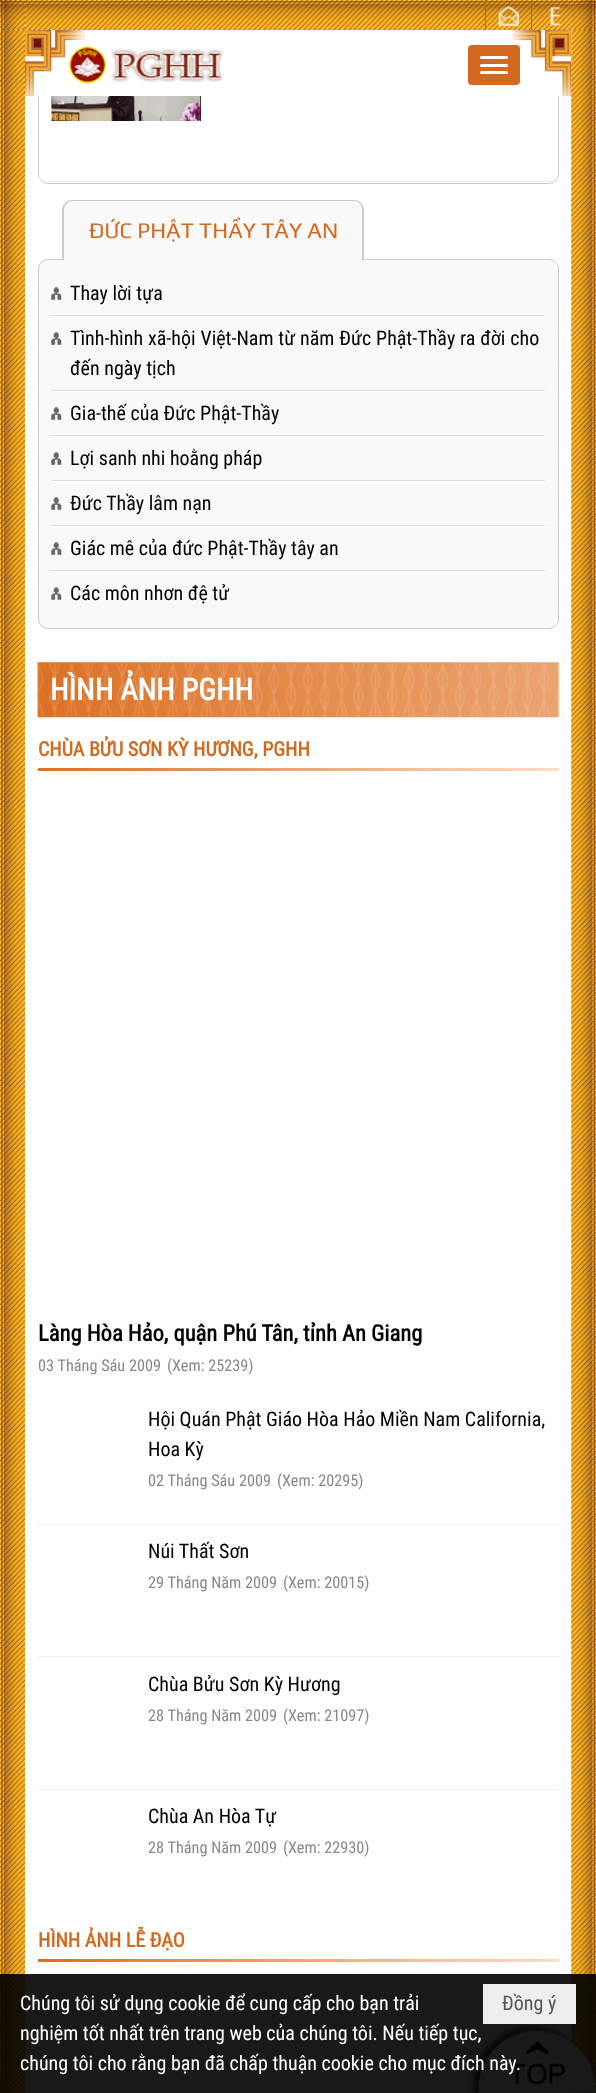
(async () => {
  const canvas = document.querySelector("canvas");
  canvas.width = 596;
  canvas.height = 2093;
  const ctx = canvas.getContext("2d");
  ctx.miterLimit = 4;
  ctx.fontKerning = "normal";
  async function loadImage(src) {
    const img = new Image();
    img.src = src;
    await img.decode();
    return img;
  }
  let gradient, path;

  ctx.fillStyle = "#ffffff";
  ctx.fillRect(0, 0, 596, 2093);
  ctx.drawImage(await loadImage("img/1.png"), 0, 96, 596, 1997);
  ctx.beginPath();
  ctx.roundRect(38.5, 8.5, 520, 175, 9.5);
  ctx.strokeStyle = "#cccccc";
  ctx.stroke();
  ctx.drawImage(await loadImage("img/2.png"), 0, 0, 596, 30);
  ctx.fillStyle = "#cc5d0e";
  ctx.fillRect(485, 0, 1, 30);
  ctx.drawImage(await loadImage("img/3.png"), 498, 6, 21, 21);
  ctx.fillRect(531, 0, 1, 30);
  ctx.drawImage(await loadImage("img/4.png"), 549, 7, 12, 19);
  ctx.fillStyle = "#ffffff";
  ctx.fillRect(38, 30, 521, 66);
  ctx.drawImage(await loadImage("img/8.png"), 51, 96, 151, 25);
  ctx.drawImage(await loadImage("img/5.png"), 0, 30, 596, 67);
  ctx.drawImage(await loadImage("img/6.png"), 25, 30, 547, 67);
  ctx.drawImage(await loadImage("img/7.png"), 68, 46, 156, 38);
  ctx.fillStyle = "#d2691e";
  ctx.beginPath();
  ctx.roundRect(468, 45, 52, 40, 4);
  ctx.fill();
  ctx.fillStyle = "#ffffff";
  ctx.beginPath();
  ctx.roundRect(480, 56, 28, 3, 1.5);
  ctx.fill();
  ctx.beginPath();
  ctx.roundRect(480, 64, 28, 3, 1.5);
  ctx.fill();
  ctx.beginPath();
  ctx.roundRect(480, 71, 28, 3, 1.5);
  ctx.fill();
  ctx.save();
  ctx.beginPath();
  ctx.roundRect(39, 9, 519, 174, 9);
  ctx.clip();
  ctx.fillStyle = "#eeeeee";
  ctx.fillRect(39, 181, 519, 1);
  ctx.restore();
  ctx.fillStyle = "#f9f9f9";
  ctx.beginPath();
  ctx.roundRect(38.5, 259.5, 520, 369, 9.5);
  ctx.fill();
  ctx.stroke();
  ctx.beginPath();
  ctx.roundRect(63, 200, 301, 60, [10, 10, 0, 0]);
  ctx.fill();
  ctx.fillStyle = "#cccccc";
  path = new Path2D("M72 200H354C359 200 364 204 364 210V260H62V210C62 204 67 200 72 200ZM72 201H354C359 201 362 205 362 210V260H64V210C64 205 68 201 72 201Z");
  ctx.fill(path, "evenodd");
  ctx.drawImage(await loadImage("img/9.png"), 51, 287, 11, 13);
  ctx.fillStyle = "#dddddd";
  ctx.fillRect(51, 315, 494, 1);
  ctx.drawImage(await loadImage("img/9.png"), 51, 332, 11, 13);
  ctx.fillStyle = "#ffffff";
  ctx.fillRect(51, 316, 494, 1);
  ctx.fillStyle = "#dddddd";
  ctx.fillRect(51, 390, 494, 1);
  ctx.drawImage(await loadImage("img/9.png"), 51, 407, 11, 13);
  ctx.fillStyle = "#ffffff";
  ctx.fillRect(51, 391, 494, 1);
  ctx.fillStyle = "#dddddd";
  ctx.fillRect(51, 435, 494, 1);
  ctx.drawImage(await loadImage("img/9.png"), 51, 452, 11, 13);
  ctx.fillStyle = "#ffffff";
  ctx.fillRect(51, 436, 494, 1);
  ctx.fillStyle = "#dddddd";
  ctx.fillRect(51, 480, 494, 1);
  ctx.drawImage(await loadImage("img/9.png"), 51, 497, 11, 13);
  ctx.fillStyle = "#ffffff";
  ctx.fillRect(51, 481, 494, 1);
  ctx.fillStyle = "#dddddd";
  ctx.fillRect(51, 525, 494, 1);
  ctx.drawImage(await loadImage("img/9.png"), 51, 542, 11, 13);
  ctx.fillStyle = "#ffffff";
  ctx.fillRect(51, 526, 494, 1);
  ctx.fillStyle = "#dddddd";
  ctx.fillRect(51, 570, 494, 1);
  ctx.drawImage(await loadImage("img/9.png"), 51, 587, 11, 13);
  ctx.fillStyle = "#ffffff";
  ctx.fillRect(51, 571, 494, 1);
  ctx.drawImage(await loadImage("img/10.png"), 37, 662, 522, 56);
  gradient = ctx.createLinearGradient(38, 769, 559, 769);
  gradient.addColorStop(0.01, "#dc7125");
  gradient.addColorStop(1, "#fbddc7");
  ctx.fillStyle = gradient;
  ctx.fillRect(38, 768, 521, 3);
  for (const [x, y, w, h, color] of [
    [38, 1524, 521, 1, "#eeeeee"],
    [38, 1656, 521, 1, "#eeeeee"],
    [38, 1789, 521, 1, "#eeeeee"],
  ]) {
    ctx.fillStyle = color;
    ctx.fillRect(x, y, w, h);
  }
  gradient = ctx.createLinearGradient(38, 1960, 559, 1960);
  gradient.addColorStop(0.01, "#dc7125");
  gradient.addColorStop(1, "#fbddc7");
  ctx.fillStyle = gradient;
  ctx.fillRect(38, 1959, 521, 3);
  ctx.drawImage(await loadImage("img/11.png"), 469, 2024, 127, 69);
  ctx.fillStyle = "rgba(0, 0, 0, 0.9)";
  ctx.fillRect(0, 1974, 596, 119);
  ctx.fillStyle = "#eeeeee";
  ctx.fillRect(483, 1984, 93, 40);
  ctx.font = "22.5px Play";
  ctx.fillStyle = "#d2691e";
  ctx.fillText("ĐỨC PHẬT THẦY TÂY AN", 89, 238);
  ctx.font = "20px Roboto Condensed";
  ctx.fillStyle = "#000000";
  ctx.fillText("Thay lời tựa", 70, 300);
  ctx.wordSpacing = "0.25px";
  ctx.fillText("Tình-hình xã-hội Việt-Nam từ năm Đức Phật-Thầy ra đời cho", 70, 345);
  ctx.wordSpacing = "0px";
  for (const [text, x, y] of [
    ["đến ngày tịch", 70, 375],
    ["Gia-thế của Đức Phật-Thầy", 70, 420],
    ["Lợi sanh nhi hoằng pháp", 70, 465],
    ["Đức Thầy lâm nạn", 70, 510],
    ["Giác mê của đức Phật-Thầy tây an", 70, 555],
    ["Các môn nhơn đệ tử", 70, 600],
  ]) {
    ctx.fillText(text, x, y);
  }
  ctx.font = "bold 30px Roboto Condensed";
  ctx.fillStyle = "#ffffff";
  ctx.fillText("HÌNH ẢNH PGHH", 50, 700);
  ctx.font = "bold 20px Roboto Condensed";
  ctx.fillStyle = "#d2691e";
  ctx.fillText("CHÙA BỬU SƠN KỲ HƯƠNG, PGHH", 38, 756);
  ctx.font = "bold 22.5px Roboto Condensed";
  ctx.fillStyle = "#000000";
  ctx.fillText("Làng Hòa Hảo, quận Phú Tân, tỉnh An Giang", 38, 1341);
  ctx.font = "16.25px Roboto Condensed";
  ctx.fillStyle = "#888888";
  ctx.fillText("03 Tháng Sáu 2009", 38, 1371);
  ctx.fillText("(Xem: 25239)", 167, 1371);
  ctx.font = "20px Roboto Condensed";
  ctx.fillStyle = "#000000";
  ctx.fillText("Hội Quán Phật Giáo Hòa Hảo Miền Nam California,", 148, 1426);
  ctx.fillText("Hoa Kỳ", 148, 1456);
  ctx.font = "16.25px Roboto Condensed";
  ctx.fillStyle = "#888888";
  ctx.fillText("02 Tháng Sáu 2009", 148, 1486);
  ctx.fillText("(Xem: 20295)", 277, 1486);
  ctx.font = "20px Roboto Condensed";
  ctx.fillStyle = "#000000";
  ctx.fillText("Núi Thất Sơn", 148, 1558);
  ctx.font = "16.25px Roboto Condensed";
  ctx.fillStyle = "#888888";
  ctx.fillText("29 Tháng Năm 2009", 148, 1588);
  ctx.fillText("(Xem: 20015)", 283, 1588);
  ctx.font = "20px Roboto Condensed";
  ctx.fillStyle = "#000000";
  ctx.fillText("Chùa Bửu Sơn Kỳ Hương", 148, 1691);
  ctx.font = "16.25px Roboto Condensed";
  ctx.fillStyle = "#888888";
  ctx.fillText("28 Tháng Năm 2009", 148, 1721);
  ctx.fillText("(Xem: 21097)", 283, 1721);
  ctx.font = "20px Roboto Condensed";
  ctx.fillStyle = "#000000";
  ctx.fillText("Chùa An Hòa Tự", 148, 1823);
  ctx.font = "16.25px Roboto Condensed";
  ctx.fillStyle = "#888888";
  ctx.fillText("28 Tháng Năm 2009", 148, 1853);
  ctx.fillText("(Xem: 22930)", 283, 1853);
  ctx.font = "bold 20px Roboto Condensed";
  ctx.fillStyle = "#d2691e";
  ctx.fillText("HÌNH ẢNH LỄ ĐẠO", 38, 1947);
  ctx.font = "20px Roboto Condensed";
  ctx.fillStyle = "#ffffff";
  for (const [text, x, y] of [
    ["Chúng tôi sử dụng cookie để cung cấp cho bạn trải", 20, 2010],
    ["nghiệm tốt nhất trên trang web của chúng tôi. Nếu tiếp tục,", 20, 2040],
    ["chúng tôi cho rằng bạn đã chấp thuận cookie cho mục đích này.", 20, 2070],
  ]) {
    ctx.fillText(text, x, y);
  }
  ctx.fillStyle = "#555555";
  ctx.fillText("Đồng ý", 502, 2010);
})();
